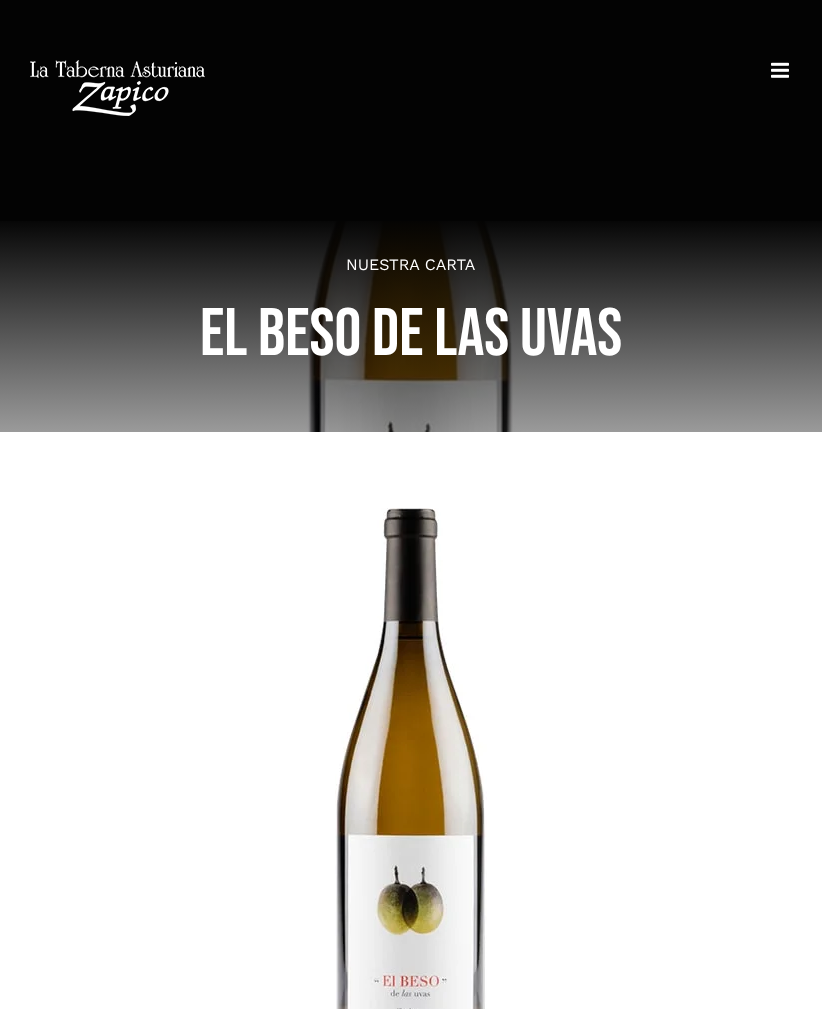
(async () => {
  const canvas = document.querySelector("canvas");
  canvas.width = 822;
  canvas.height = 1009;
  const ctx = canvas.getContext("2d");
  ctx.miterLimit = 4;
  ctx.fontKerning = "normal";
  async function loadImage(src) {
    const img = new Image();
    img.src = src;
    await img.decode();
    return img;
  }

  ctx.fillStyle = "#ffffff";
  ctx.fillRect(0, 0, 822, 1009);
  ctx.fillStyle = "#030303";
  ctx.fillRect(0, 0, 822, 221);
  ctx.drawImage(await loadImage("img/1.png"), 30, 60, 175, 56);
  ctx.drawImage(await loadImage("img/2.png"), 771, 62, 18, 16);
  ctx.drawImage(await loadImage("img/3.png"), 0, 221, 822, 211);
  ctx.drawImage(await loadImage("img/4.png"), 335, 508, 152, 501);
  ctx.font = "16px Work Sans";
  ctx.fillStyle = "#ffffff";
  ctx.fillText("NUESTRA CARTA", 346, 270);
  ctx.font = "67px Bebas Neue";
  ctx.fillText("El Beso de las Uvas", 200, 355);
})();
